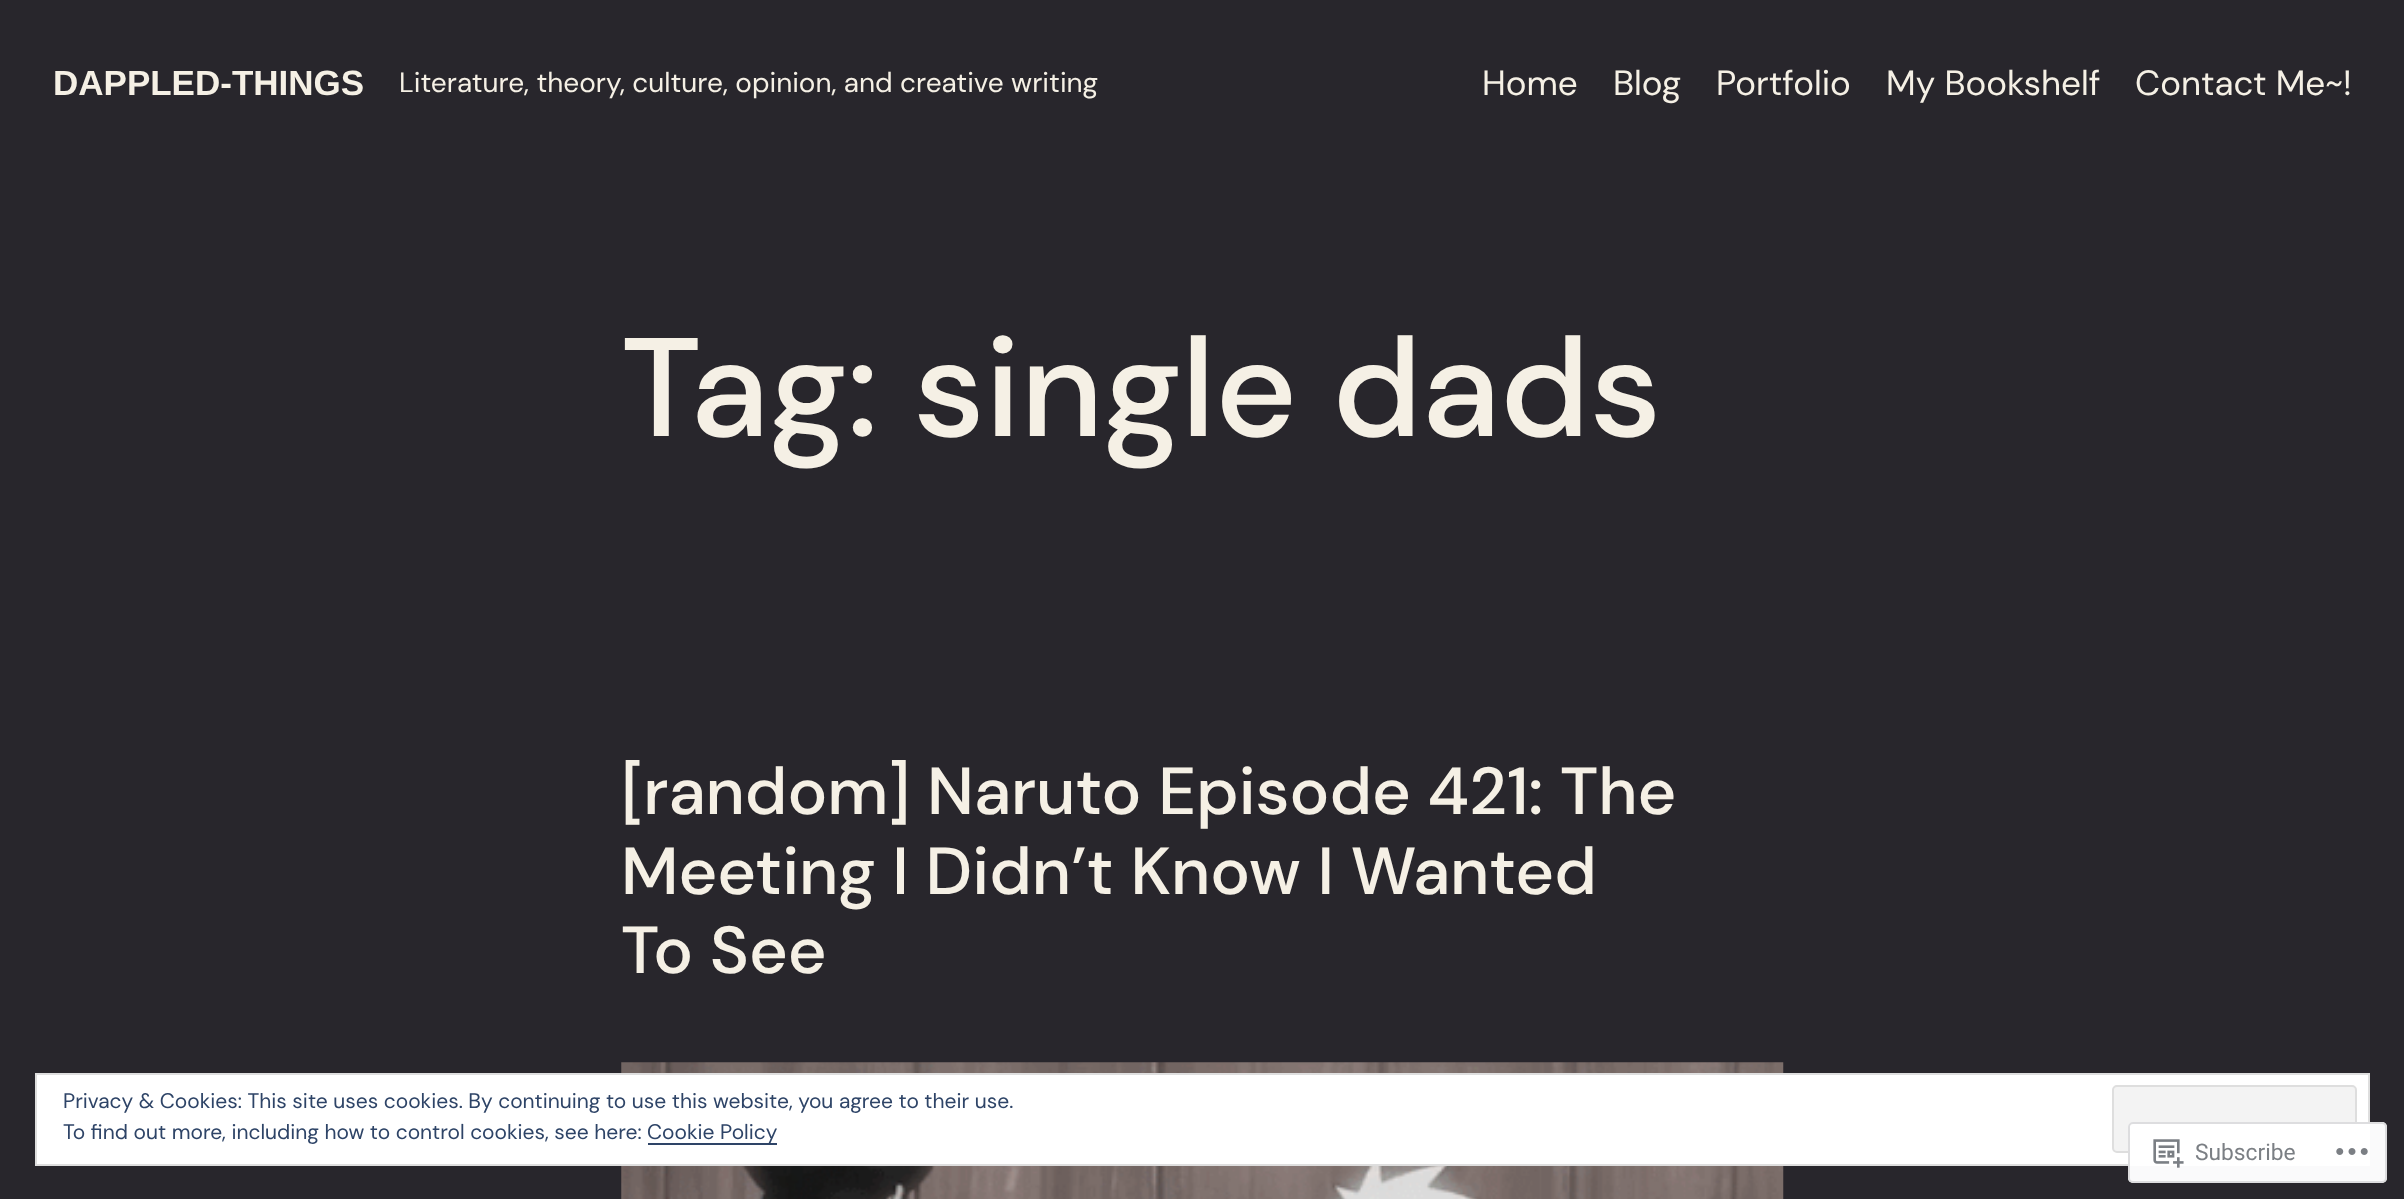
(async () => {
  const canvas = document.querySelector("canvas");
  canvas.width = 2404;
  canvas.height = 1199;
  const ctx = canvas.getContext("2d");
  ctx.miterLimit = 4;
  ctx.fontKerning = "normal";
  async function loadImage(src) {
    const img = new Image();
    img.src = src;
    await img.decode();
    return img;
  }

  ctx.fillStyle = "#28262c";
  ctx.fillRect(0, 0, 2404, 1199);
  ctx.drawImage(await loadImage("img/1.png"), 621, 1062, 1163, 137);
  ctx.fillStyle = "#ffffff";
  ctx.beginPath();
  ctx.rect(36, 1074, 2333, 91);
  ctx.fill();
  ctx.strokeStyle = "#dedede";
  ctx.lineWidth = 2;
  ctx.stroke();
  ctx.fillStyle = "#f3f3f3";
  ctx.beginPath();
  ctx.roundRect(2113, 1086, 243, 66, 4);
  ctx.fill();
  ctx.stroke();
  ctx.fillStyle = "#2e4467";
  ctx.fillRect(648, 1143, 129, 2);
  ctx.fillStyle = "rgba(255, 255, 255, 0.98)";
  ctx.beginPath();
  ctx.roundRect(2128, 1122, 259, 61, 5);
  ctx.fill();
  ctx.beginPath();
  ctx.roundRect(2129, 1123, 257, 59, 4);
  ctx.strokeStyle = "rgba(220, 220, 222, 0.98)";
  ctx.stroke();
  ctx.drawImage(await loadImage("img/2.png"), 2153, 1139, 31, 29);
  ctx.drawImage(await loadImage("img/3.png"), 2336, 1148, 32, 7);
  ctx.font = "bold 35px Liberation Sans";
  ctx.fillStyle = "#f5f0e5";
  ctx.fillText("DAPPLED-THINGS", 53, 95);
  ctx.font = "28px DM Sans";
  ctx.fillText("Literature, theory, culture, opinion, and creative writing", 399, 92);
  ctx.font = "35px DM Sans";
  for (const [text, x, y] of [
    ["Home", 1482, 95],
    ["Blog", 1613, 95],
    ["Portfolio", 1716, 95],
    ["My Bookshelf", 1886, 95],
    ["Contact Me~!", 2135, 95],
  ]) {
    ctx.fillText(text, x, y);
  }
  ctx.font = "500 140px DM Sans";
  ctx.fillText("Tag: single dads", 621, 436);
  ctx.font = "500 66.5px DM Sans";
  for (const [text, x, y] of [
    ["[random] Naruto Episode 421: The", 621, 814],
    ["Meeting I Didn’t Know I Wanted", 621, 894],
    ["To See", 621, 973],
  ]) {
    ctx.fillText(text, x, y);
  }
  ctx.font = "21px DM Sans";
  ctx.fillStyle = "#2e4467";
  for (const [text, x, y] of [
    ["Privacy & Cookies: This site uses cookies. By continuing to use this website, you agree to their use.", 63, 1108],
    ["To find out more, including how to control cookies, see here:", 63, 1139],
    ["Cookie Policy", 647, 1139],
  ]) {
    ctx.fillText(text, x, y);
  }
  ctx.font = "22.75px Roboto";
  ctx.fillStyle = "#7b7f84";
  ctx.fillText("Subscribe", 2195, 1160);
})();
